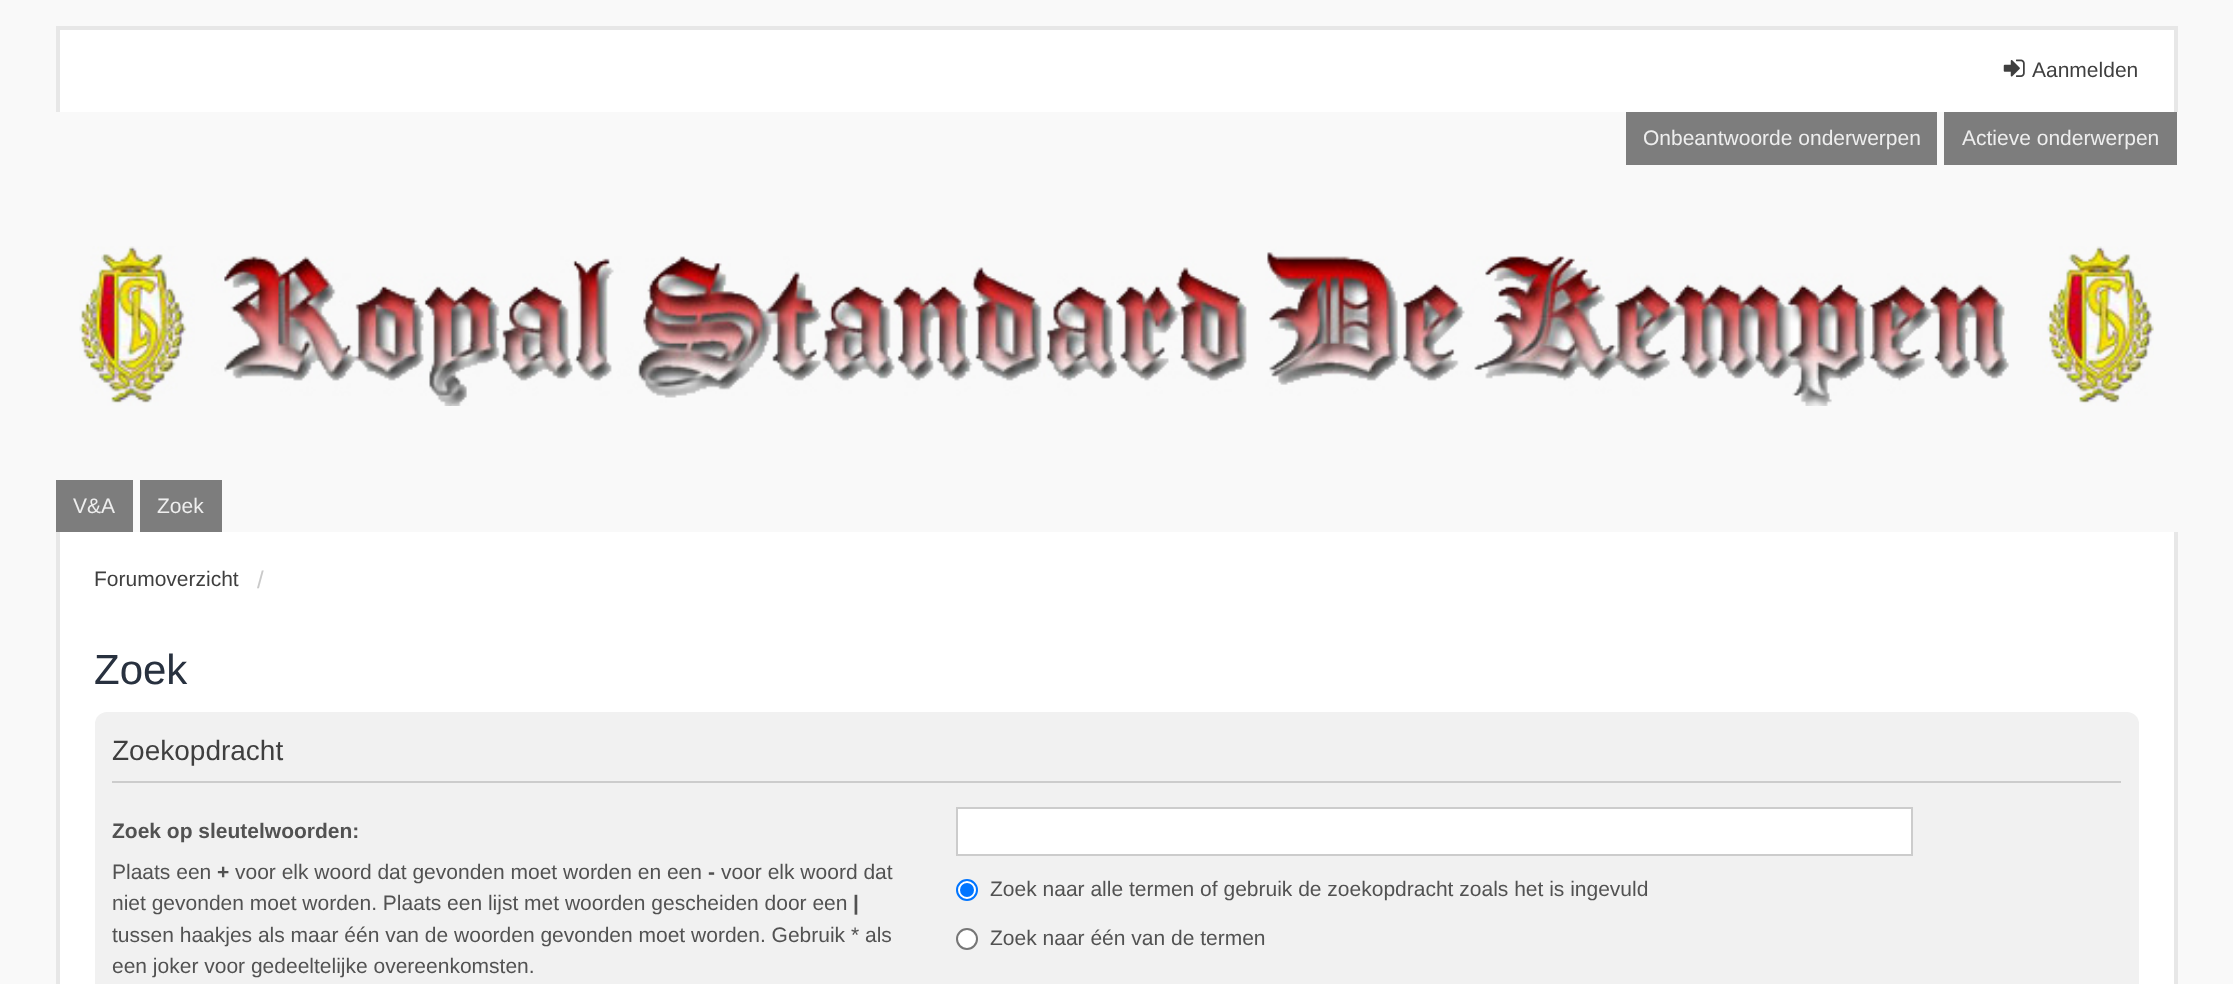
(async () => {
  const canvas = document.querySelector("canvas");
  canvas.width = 2233;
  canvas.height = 984;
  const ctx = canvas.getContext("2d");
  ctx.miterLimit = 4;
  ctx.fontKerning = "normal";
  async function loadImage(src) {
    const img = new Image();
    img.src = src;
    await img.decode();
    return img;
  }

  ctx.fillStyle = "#f9f9f9";
  ctx.fillRect(0, 0, 2233, 984);
  for (const [x, y, w, h, color] of [
    [60, 30, 2114, 82, "#ffffff"],
    [56, 26, 2121, 4, "#e7e7e7"],
    [2174, 26, 4, 86, "#e7e7e7"],
    [56, 26, 4, 86, "#e7e7e7"],
  ]) {
    ctx.fillStyle = color;
    ctx.fillRect(x, y, w, h);
  }
  ctx.drawImage(await loadImage("img/1.png"), 2003, 59, 22, 18);
  ctx.drawImage(await loadImage("img/2.png"), 79, 246, 2075, 160);
  for (const [x, y, w, h, color] of [
    [1626, 112, 311, 53, "#7d7d7d"],
    [1944, 112, 233, 53, "#7d7d7d"],
    [56, 480, 77, 52, "#7d7d7d"],
    [140, 480, 82, 52, "#7d7d7d"],
    [60, 532, 2114, 452, "#ffffff"],
    [2174, 532, 4, 452, "#e7e7e7"],
    [56, 532, 4, 452, "#e7e7e7"],
  ]) {
    ctx.fillStyle = color;
    ctx.fillRect(x, y, w, h);
  }
  ctx.fillStyle = "#f1f1f1";
  ctx.beginPath();
  ctx.roundRect(95, 712, 2044, 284, 12);
  ctx.fill();
  ctx.fillStyle = "#cccccc";
  ctx.fillRect(112, 781, 2009, 2);
  ctx.fillStyle = "#ffffff";
  ctx.beginPath();
  ctx.rect(957, 808, 955, 47);
  ctx.fill();
  ctx.strokeStyle = "#cccccc";
  ctx.lineWidth = 2;
  ctx.stroke();
  ctx.beginPath();
  ctx.arc(967, 890, 10, 0, Math.PI * 2);
  ctx.fill();
  ctx.strokeStyle = "#0075ff";
  ctx.stroke();
  ctx.fillStyle = "#0075ff";
  ctx.beginPath();
  ctx.arc(967, 890, 7, 0, Math.PI * 2);
  ctx.fill();
  ctx.fillStyle = "#ffffff";
  ctx.beginPath();
  ctx.arc(967, 939, 10, 0, Math.PI * 2);
  ctx.fill();
  ctx.strokeStyle = "#767676";
  ctx.stroke();
  ctx.font = "21px Liberation Sans";
  ctx.fillStyle = "#3f3f3f";
  ctx.fillText("Aanmelden", 2032, 77);
  ctx.fillStyle = "#eeeeee";
  for (const [text, x, y] of [
    ["Onbeantwoorde onderwerpen", 1643, 145],
    ["Actieve onderwerpen", 1962, 145],
    ["V&A", 73, 513],
    ["Zoek", 157, 513],
  ]) {
    ctx.fillText(text, x, y);
  }
  ctx.fillStyle = "#3f3f3f";
  ctx.fillText("Forumoverzicht", 94, 586);
  ctx.font = "24px Liberation Sans";
  ctx.fillStyle = "#cacaca";
  ctx.fillText("/", 257, 588);
  ctx.font = "42px Liberation Sans";
  ctx.fillStyle = "#28313f";
  ctx.fillText("Zoek", 94, 684);
  ctx.font = "28px Liberation Sans";
  ctx.fillStyle = "#3f3f3f";
  ctx.fillText("Zoekopdracht", 112, 760);
  ctx.font = "bold 21px Liberation Sans";
  ctx.fillStyle = "#525252";
  ctx.fillText("Zoek op sleutelwoorden:", 112, 838);
  ctx.font = "21px Liberation Sans";
  ctx.fillText("Plaats een", 112, 879);
  ctx.font = "bold 21px Liberation Sans";
  ctx.fillText("+", 217, 879);
  ctx.font = "21px Liberation Sans";
  ctx.fillText("voor elk woord dat gevonden moet worden en een", 235, 879);
  ctx.font = "bold 21px Liberation Sans";
  ctx.fillText("-", 708, 879);
  ctx.font = "21px Liberation Sans";
  ctx.fillText("voor elk woord dat", 721, 879);
  ctx.fillText("niet gevonden moet worden. Plaats een lijst met woorden gescheiden door een", 112, 910);
  ctx.font = "bold 21px Liberation Sans";
  ctx.fillText("|", 853, 910);
  ctx.font = "21px Liberation Sans";
  for (const [text, x, y] of [
    ["tussen haakjes als maar één van de woorden gevonden moet worden. Gebruik * als", 112, 942],
    ["een joker voor gedeeltelijke overeenkomsten.", 112, 973],
    ["Zoek naar alle termen of gebruik de zoekopdracht zoals het is ingevuld", 990, 896],
    ["Zoek naar één van de termen", 990, 945],
  ]) {
    ctx.fillText(text, x, y);
  }
})();
